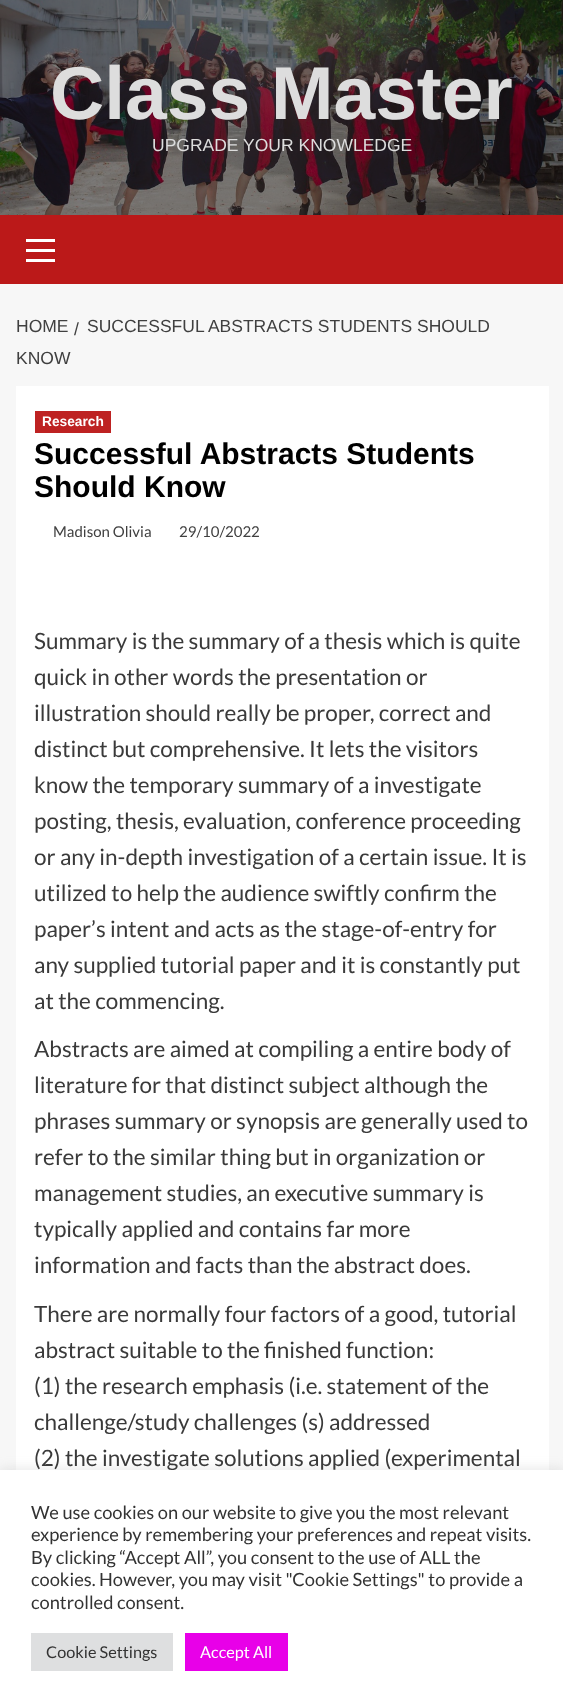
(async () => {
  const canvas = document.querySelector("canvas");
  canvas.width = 563;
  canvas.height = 1708;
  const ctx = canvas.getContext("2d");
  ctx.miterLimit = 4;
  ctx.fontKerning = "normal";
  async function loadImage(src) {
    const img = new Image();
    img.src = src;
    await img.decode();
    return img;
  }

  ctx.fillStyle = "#f7f7f7";
  ctx.fillRect(0, 0, 563, 1708);
  ctx.drawImage(await loadImage("img/1.png"), 0, 0, 563, 215);
  for (const [x, y, w, h, color] of [
    [0, 215, 563, 69, "#bb1919"],
    [26, 249, 29, 3, "#ffffff"],
    [26, 239, 29, 3, "#ffffff"],
    [26, 259, 29, 3, "#ffffff"],
    [16, 386, 533, 1084, "#ffffff"],
    [35, 411, 76, 22, "#be2222"],
  ]) {
    ctx.fillStyle = color;
    ctx.fillRect(x, y, w, h);
  }
  ctx.fillStyle = "rgba(172, 171, 171, 0.3)";
  ctx.filter = "blur(6px)";
  ctx.beginPath();
  ctx.rect(0, 1469, 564, 239);
  ctx.fill();
  ctx.filter = "none";
  ctx.font = "bold 75px Liberation Sans";
  ctx.fillStyle = "#dddddd";
  ctx.fillText("Class Master", 50, 119);
  ctx.font = "17.5px Liberation Sans";
  ctx.fillText("UPGRADE YOUR KNOWLEDGE", 152, 151);
  ctx.fillStyle = "#404040";
  for (const [text, x, y] of [
    ["HOME", 16, 332],
    ["/", 74, 335],
    ["SUCCESSFUL ABSTRACTS STUDENTS SHOULD", 87, 332],
    ["KNOW", 16, 364],
  ]) {
    ctx.fillText(text, x, y);
  }
  ctx.font = "bold 13.75px Liberation Sans";
  ctx.fillStyle = "#ffffff";
  ctx.fillText("Research", 42, 426);
  ctx.font = "bold 30px Liberation Sans";
  ctx.fillStyle = "#000000";
  ctx.fillText("Successful Abstracts Students", 34, 464);
  ctx.fillText("Should Know", 34, 497);
  ctx.font = "15px Lato";
  ctx.fillStyle = "#404040";
  ctx.fillText("Madison Olivia", 53, 537);
  ctx.fillText("29/10/2022", 179, 537);
  ctx.font = "22.5px Lato";
  ctx.fillStyle = "#3a3a3a";
  for (const [text, x, y] of [
    ["Summary is the summary of a thesis which is quite", 34, 649],
    ["quick in other words the presentation or", 34, 685],
    ["illustration should really be proper, correct and", 34, 721],
    ["distinct but comprehensive. It lets the visitors", 34, 757],
    ["know the temporary summary of a investigate", 34, 793],
    ["posting, thesis, evaluation, conference proceeding", 34, 829],
    ["or any in-depth investigation of a certain issue. It is", 34, 865],
    ["utilized to help the audience swiftly confirm the", 34, 901],
    ["paper’s intent and acts as the stage-of-entry for", 34, 937],
    ["any supplied tutorial paper and it is constantly put", 34, 973],
    ["at the commencing.", 34, 1009],
    ["Abstracts are aimed at compiling a entire body of", 34, 1057],
    ["literature for that distinct subject although the", 34, 1093],
    ["phrases summary or synopsis are generally used to", 34, 1129],
    ["refer to the similar thing but in organization or", 34, 1165],
    ["management studies, an executive summary is", 34, 1201],
    ["typically applied and contains far more", 34, 1237],
    ["information and facts than the abstract does.", 34, 1273],
    ["There are normally four factors of a good, tutorial", 34, 1322],
    ["abstract suitable to the finished function:", 34, 1358],
    ["(1) the research emphasis (i.e. statement of the", 34, 1394],
    ["challenge/study challenges (s) addressed", 34, 1430],
    ["(2) the investigate solutions applied (experimental", 34, 1466],
  ]) {
    ctx.fillText(text, x, y);
  }
  ctx.fillStyle = "#ffffff";
  ctx.fillRect(0, 1470, 563, 238);
  ctx.font = "18.3px Lato";
  ctx.fillStyle = "#333333";
  for (const [text, x, y] of [
    ["We use cookies on our website to give you the most relevant", 31, 1519],
    ["experience by remembering your preferences and repeat visits.", 31, 1541],
    ["By clicking “Accept All”, you consent to the use of ALL the", 31, 1564],
    ["cookies. However, you may visit \"Cookie Settings\" to provide a", 31, 1586],
    ["controlled consent.", 31, 1609],
  ]) {
    ctx.fillText(text, x, y);
  }
  ctx.fillStyle = "#dedfe0";
  ctx.fillRect(31, 1633, 142, 38);
  ctx.font = "16.25px Lato";
  ctx.fillStyle = "#333333";
  ctx.fillText("Cookie Settings", 46, 1658);
  ctx.fillStyle = "#e800e8";
  ctx.fillRect(185, 1633, 103, 38);
  ctx.fillStyle = "#ffffff";
  ctx.fillText("Accept All", 200, 1658);
})();
